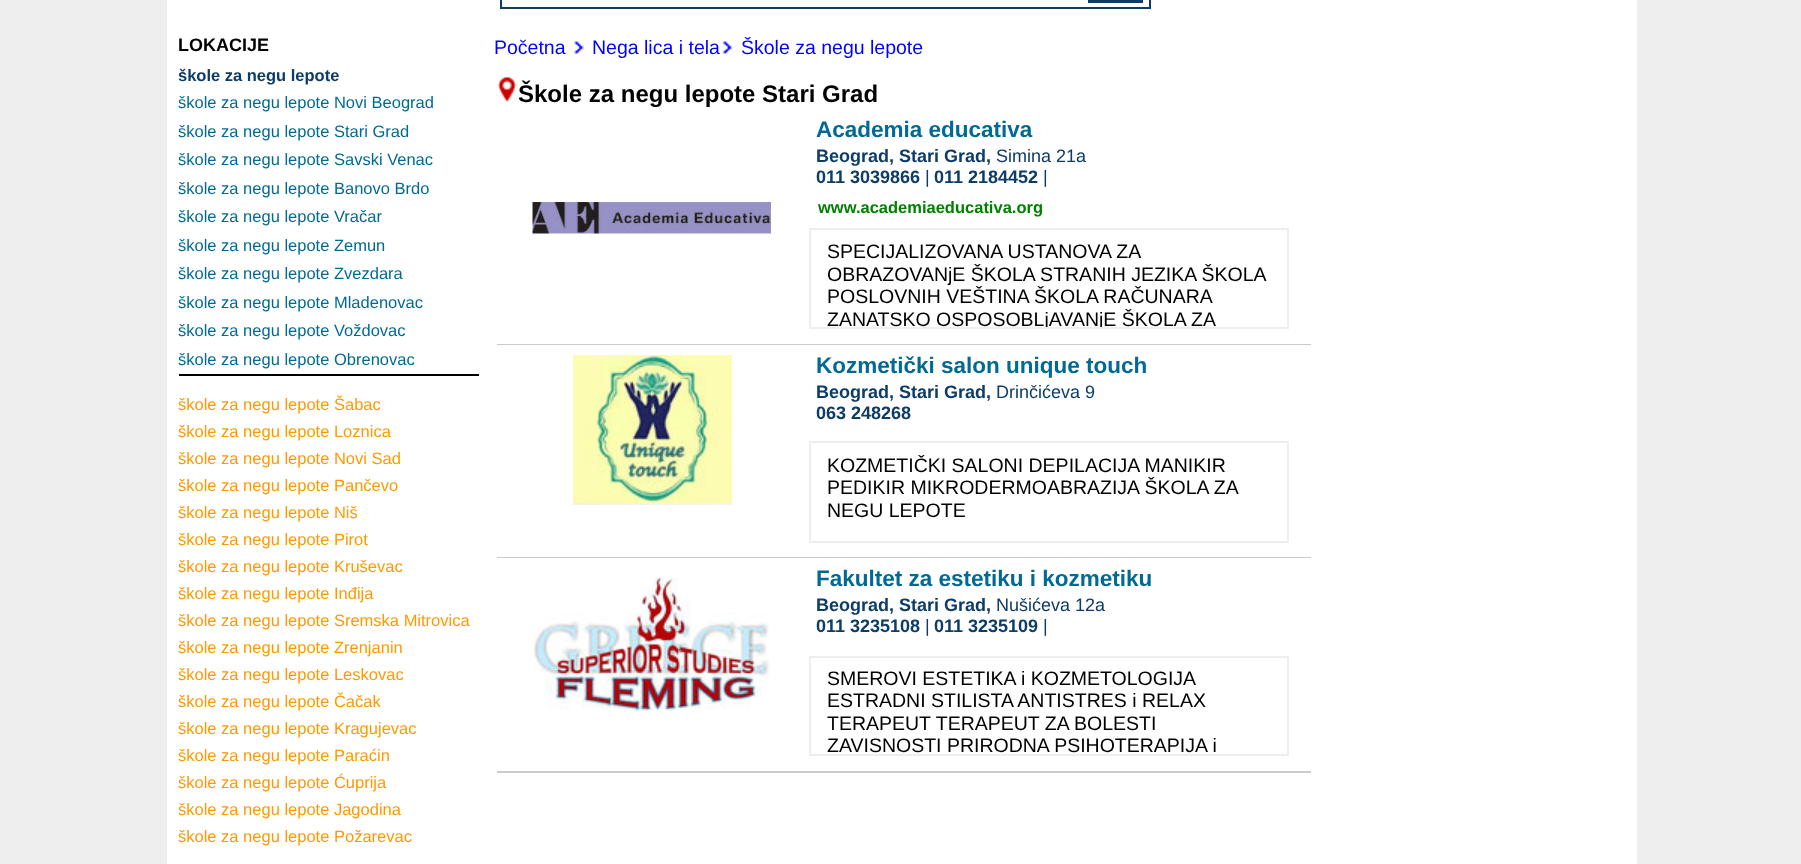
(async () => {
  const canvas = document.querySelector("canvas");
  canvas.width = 1801;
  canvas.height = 864;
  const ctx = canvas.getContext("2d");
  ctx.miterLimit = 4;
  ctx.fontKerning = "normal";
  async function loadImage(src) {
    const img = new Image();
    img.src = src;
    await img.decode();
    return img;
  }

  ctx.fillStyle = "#eeeeee";
  ctx.fillRect(0, 0, 1801, 864);
  ctx.fillStyle = "#ffffff";
  ctx.fillRect(167, 0, 1470, 864);
  ctx.strokeStyle = "#0d3c66";
  ctx.lineWidth = 2;
  ctx.strokeRect(501, -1, 649, 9);
  ctx.fillStyle = "#0d3c66";
  ctx.fillRect(1088, 0, 55, 3);
  ctx.fillStyle = "#000000";
  ctx.fillRect(179, 374, 300, 2);
  ctx.drawImage(await loadImage("img/1.png"), 574, 41, 10, 13);
  ctx.drawImage(await loadImage("img/2.png"), 722, 41, 11, 13);
  ctx.drawImage(await loadImage("img/3.png"), 497, 77, 20, 25);
  ctx.fillStyle = "#cbcbcb";
  ctx.fillRect(495, 344, 816, 1);
  ctx.fillStyle = "#ffffff";
  ctx.fillRect(495, 344, 2, 1);
  ctx.drawImage(await loadImage("img/4.png"), 532, 202, 239, 32);
  ctx.strokeStyle = "#eeeeee";
  ctx.strokeRect(810, 229, 478, 99);
  ctx.fillStyle = "#cbcbcb";
  ctx.fillRect(495, 557, 816, 1);
  ctx.fillStyle = "#ffffff";
  ctx.fillRect(495, 557, 2, 1);
  ctx.drawImage(await loadImage("img/5.png"), 573, 355, 159, 150);
  ctx.strokeRect(810, 442, 478, 100);
  ctx.fillStyle = "#cbcbcb";
  ctx.fillRect(495, 771, 816, 2);
  ctx.fillStyle = "#ffffff";
  ctx.fillRect(495, 771, 2, 2);
  ctx.drawImage(await loadImage("img/6.png"), 534, 577, 236, 135);
  ctx.strokeRect(810, 657, 478, 98);
  ctx.font = "bold 18px Liberation Sans";
  ctx.fillStyle = "#000000";
  ctx.fillText("LOKACIJE", 178, 51);
  ctx.font = "bold 16.5px Liberation Sans";
  ctx.fillStyle = "#0d3c66";
  ctx.fillText("škole za negu lepote", 178, 81);
  ctx.font = "16.5px Liberation Sans";
  ctx.fillStyle = "#016a94";
  for (const [text, x, y] of [
    ["škole za negu lepote Novi Beograd", 178, 108],
    ["škole za negu lepote Stari Grad", 178, 137],
    ["škole za negu lepote Savski Venac", 178, 165],
    ["škole za negu lepote Banovo Brdo", 178, 194],
    ["škole za negu lepote Vračar", 178, 222],
    ["škole za negu lepote Zemun", 178, 251],
    ["škole za negu lepote Zvezdara", 178, 279],
    ["škole za negu lepote Mladenovac", 178, 308],
    ["škole za negu lepote Voždovac", 178, 336],
    ["škole za negu lepote Obrenovac", 178, 365],
  ]) {
    ctx.fillText(text, x, y);
  }
  ctx.fillStyle = "#ff9900";
  for (const [text, x, y] of [
    ["škole za negu lepote Šabac", 178, 410],
    ["škole za negu lepote Loznica", 178, 437],
    ["škole za negu lepote Novi Sad", 178, 464],
    ["škole za negu lepote Pančevo", 178, 491],
    ["škole za negu lepote Niš", 178, 518],
    ["škole za negu lepote Pirot", 178, 545],
    ["škole za negu lepote Kruševac", 178, 572],
    ["škole za negu lepote Inđija", 178, 599],
    ["škole za negu lepote Sremska Mitrovica", 178, 626],
    ["škole za negu lepote Zrenjanin", 178, 653],
    ["škole za negu lepote Leskovac", 178, 680],
    ["škole za negu lepote Čačak", 178, 707],
    ["škole za negu lepote Kragujevac", 178, 734],
    ["škole za negu lepote Paraćin", 178, 761],
    ["škole za negu lepote Ćuprija", 178, 788],
    ["škole za negu lepote Jagodina", 178, 815],
    ["škole za negu lepote Požarevac", 178, 842],
  ]) {
    ctx.fillText(text, x, y);
  }
  ctx.font = "19.5px Liberation Sans";
  ctx.fillStyle = "#0000ff";
  for (const [text, x, y] of [
    ["Početna", 494, 54],
    ["Nega lica i tela", 592, 54],
    ["Škole za negu lepote", 741, 54],
  ]) {
    ctx.fillText(text, x, y);
  }
  ctx.font = "bold 24px Liberation Sans";
  ctx.fillStyle = "#000000";
  ctx.fillText("Škole za negu lepote Stari Grad", 518, 102);
  ctx.font = "bold 22.5px Liberation Sans";
  ctx.fillStyle = "#016a94";
  ctx.fillText("Academia educativa", 816, 137);
  ctx.font = "bold 18px Liberation Sans";
  ctx.fillStyle = "#0d3c66";
  ctx.fillText("Beograd, Stari Grad,", 816, 162);
  ctx.font = "18px Liberation Sans";
  ctx.fillText("Simina 21a", 996, 162);
  ctx.font = "bold 18px Liberation Sans";
  ctx.fillText("011 3039866", 816, 183);
  ctx.font = "18px Liberation Sans";
  ctx.fillText("|", 925, 183);
  ctx.font = "bold 18px Liberation Sans";
  ctx.fillText("011 2184452", 934, 183);
  ctx.font = "18px Liberation Sans";
  ctx.fillText("|", 1043, 183);
  ctx.font = "bold 16.5px Liberation Sans";
  ctx.fillStyle = "#008000";
  ctx.fillText("www.academiaeducativa.org", 818, 213);
  ctx.font = "19.5px Liberation Sans";
  ctx.fillStyle = "#000000";
  for (const [text, x, y] of [
    ["SPECIJALIZOVANA USTANOVA ZA", 827, 258],
    ["OBRAZOVANjE ŠKOLA STRANIH JEZIKA ŠKOLA", 827, 281],
    ["POSLOVNIH VEŠTINA ŠKOLA RAČUNARA", 827, 303],
  ]) {
    ctx.fillText(text, x, y);
  }
  ctx.save();
  ctx.beginPath();
  ctx.rect(810, 230, 477, 97);
  ctx.clip();
  ctx.fillText("ZANATSKO OSPOSOBLjAVANjE ŠKOLA ZA", 827, 326);
  ctx.restore();
  ctx.font = "bold 22.5px Liberation Sans";
  ctx.fillStyle = "#016a94";
  ctx.fillText("Kozmetički salon unique touch", 816, 373);
  ctx.font = "bold 18px Liberation Sans";
  ctx.fillStyle = "#0d3c66";
  ctx.fillText("Beograd, Stari Grad,", 816, 398);
  ctx.font = "18px Liberation Sans";
  ctx.fillText("Drinčićeva 9", 996, 398);
  ctx.font = "bold 18px Liberation Sans";
  ctx.fillText("063 248268", 816, 419);
  ctx.font = "19.5px Liberation Sans";
  ctx.fillStyle = "#000000";
  for (const [text, x, y] of [
    ["KOZMETIČKI SALONI DEPILACIJA MANIKIR", 827, 472],
    ["PEDIKIR MIKRODERMOABRAZIJA ŠKOLA ZA", 827, 494],
    ["NEGU LEPOTE", 827, 517],
  ]) {
    ctx.fillText(text, x, y);
  }
  ctx.font = "bold 22.5px Liberation Sans";
  ctx.fillStyle = "#016a94";
  ctx.fillText("Fakultet za estetiku i kozmetiku", 816, 586);
  ctx.font = "bold 18px Liberation Sans";
  ctx.fillStyle = "#0d3c66";
  ctx.fillText("Beograd, Stari Grad,", 816, 611);
  ctx.font = "18px Liberation Sans";
  ctx.fillText("Nušićeva 12a", 996, 611);
  ctx.font = "bold 18px Liberation Sans";
  ctx.fillText("011 3235108", 816, 632);
  ctx.font = "18px Liberation Sans";
  ctx.fillText("|", 925, 632);
  ctx.font = "bold 18px Liberation Sans";
  ctx.fillText("011 3235109", 934, 632);
  ctx.font = "18px Liberation Sans";
  ctx.fillText("|", 1043, 632);
  ctx.font = "19.5px Liberation Sans";
  ctx.fillStyle = "#000000";
  for (const [text, x, y] of [
    ["SMEROVI ESTETIKA i KOZMETOLOGIJA", 827, 685],
    ["ESTRADNI STILISTA ANTISTRES i RELAX", 827, 707],
    ["TERAPEUT TERAPEUT ZA BOLESTI", 827, 730],
    ["ZAVISNOSTI PRIRODNA PSIHOTERAPIJA i", 827, 752],
  ]) {
    ctx.fillText(text, x, y);
  }
})();
